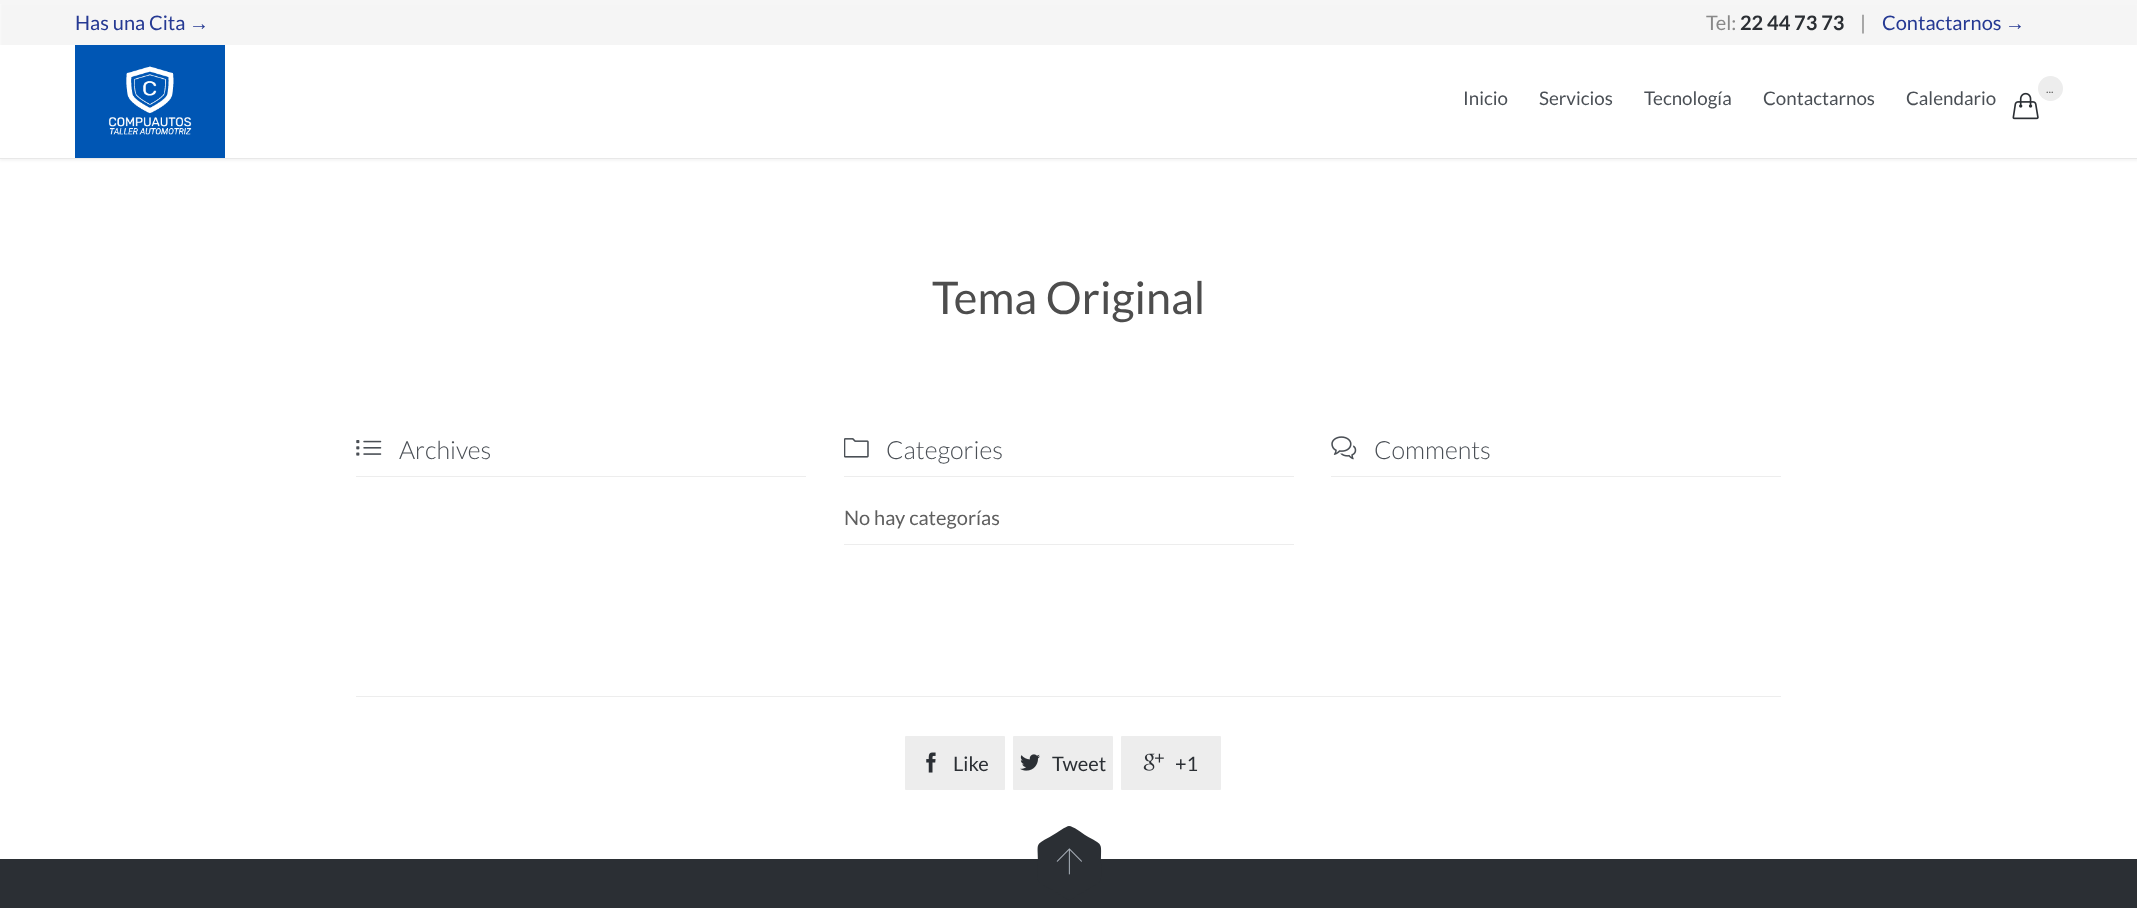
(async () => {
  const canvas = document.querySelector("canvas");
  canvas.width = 2137;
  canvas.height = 908;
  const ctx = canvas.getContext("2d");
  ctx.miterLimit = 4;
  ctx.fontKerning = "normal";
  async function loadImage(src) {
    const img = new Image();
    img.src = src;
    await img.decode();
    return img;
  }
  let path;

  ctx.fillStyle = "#ffffff";
  ctx.fillRect(0, 0, 2137, 908);
  ctx.fillStyle = "rgba(0, 0, 0, 0.04)";
  ctx.filter = "blur(1px)";
  ctx.beginPath();
  ctx.rect(0, 3, 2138, 158);
  ctx.fill();
  ctx.filter = "none";
  for (const [x, y, w, h, color] of [
    [0, 45, 2137, 113, "#ffffff"],
    [0, 158, 2137, 1, "#e8e8e8"],
    [0, 0, 2137, 4, "#f6f6f6"],
  ]) {
    ctx.fillStyle = color;
    ctx.fillRect(x, y, w, h);
  }
  ctx.drawImage(await loadImage("img/1.png"), 75, 45, 150, 113);
  ctx.drawImage(await loadImage("img/2.png"), 2012, 92, 27, 28);
  ctx.fillStyle = "#ededed";
  ctx.beginPath();
  ctx.arc(2050.5, 88.5, 12.5, 0, Math.PI * 2);
  ctx.fill();
  ctx.fillRect(356, 476, 450, 1);
  ctx.drawImage(await loadImage("img/3.png"), 356, 440, 26, 16);
  ctx.fillRect(844, 476, 450, 1);
  ctx.drawImage(await loadImage("img/4.png"), 844, 438, 25, 20);
  ctx.fillRect(844, 544, 450, 1);
  ctx.fillRect(1331, 476, 450, 1);
  ctx.drawImage(await loadImage("img/5.png"), 1331, 436, 26, 24);
  ctx.fillRect(356, 696, 1425, 1);
  ctx.beginPath();
  ctx.roundRect(905, 736, 100, 54, 1);
  ctx.fill();
  ctx.drawImage(await loadImage("img/6.png"), 926, 752, 10, 21);
  ctx.beginPath();
  ctx.roundRect(1013, 736, 100, 54, 1);
  ctx.fill();
  ctx.drawImage(await loadImage("img/7.png"), 1020, 754, 20, 17);
  ctx.beginPath();
  ctx.roundRect(1121, 736, 100, 54, 1);
  ctx.fill();
  ctx.drawImage(await loadImage("img/8.png"), 1143, 753, 21, 18);
  ctx.fillStyle = "#2b2f34";
  ctx.fillRect(0, 859, 2137, 49);
  path = new Path2D("M1069 900C1067 900 1064 897 1062 896L1054 891C1034 880 1038 885 1038 863C1038 841 1034 846 1053 835C1057 833 1066 826 1069 826C1073 826 1082 833 1085 835C1104 846 1101 841 1101 863C1101 885 1104 880 1085 891L1076 896C1075 897 1072 900 1069 900Z");
  ctx.fill(path);
  ctx.drawImage(await loadImage("img/9.png"), 1056, 848, 26, 27);
  ctx.font = "20px Lato";
  ctx.fillStyle = "#253993";
  ctx.fillText("Has una Cita", 75, 30);
  ctx.font = "20px Liberation Serif";
  ctx.fillText("→", 189, 30);
  ctx.font = "20px Lato";
  ctx.fillStyle = "#898989";
  ctx.fillText("Tel:", 1706, 30);
  ctx.font = "bold 20px Lato";
  ctx.fillStyle = "#2b2f34";
  ctx.fillText("22 44 73 73", 1740, 30);
  ctx.font = "20px Lato";
  ctx.fillStyle = "#898989";
  ctx.fillText("|", 1860, 30);
  ctx.fillStyle = "#253993";
  ctx.fillText("Contactarnos", 1882, 30);
  ctx.font = "20px Liberation Serif";
  ctx.fillText("→", 2005, 30);
  ctx.font = "18.75px Lato";
  ctx.fillStyle = "#4a4f55";
  for (const [text, x, y] of [
    ["Inicio", 1463, 105],
    ["Servicios", 1539, 105],
    ["Tecnología", 1644, 105],
    ["Contactarnos", 1763, 105],
    ["Calendario", 1906, 105],
  ]) {
    ctx.fillText(text, x, y);
  }
  ctx.font = "12px Lato";
  ctx.fillStyle = "#6e6e6e";
  ctx.fillText("...", 2046, 93);
  ctx.font = "45px Lato";
  ctx.fillStyle = "#4d4d4d";
  ctx.fillText("Tema Original", 932, 314);
  ctx.font = "300 25px Lato";
  ctx.fillStyle = "#4a4f55";
  ctx.fillText("Archives", 399, 459);
  ctx.fillText("Categories", 886, 459);
  ctx.font = "20px Lato";
  ctx.fillStyle = "#5f5f5f";
  ctx.fillText("No hay categorías", 844, 525);
  ctx.font = "300 25px Lato";
  ctx.fillStyle = "#4a4f55";
  ctx.fillText("Comments", 1374, 459);
  ctx.font = "20px Lato";
  ctx.fillStyle = "#2b2f34";
  for (const [text, x, y] of [
    ["Like", 953, 771],
    ["Tweet", 1052, 771],
    ["+1", 1175, 771],
  ]) {
    ctx.fillText(text, x, y);
  }
})();
